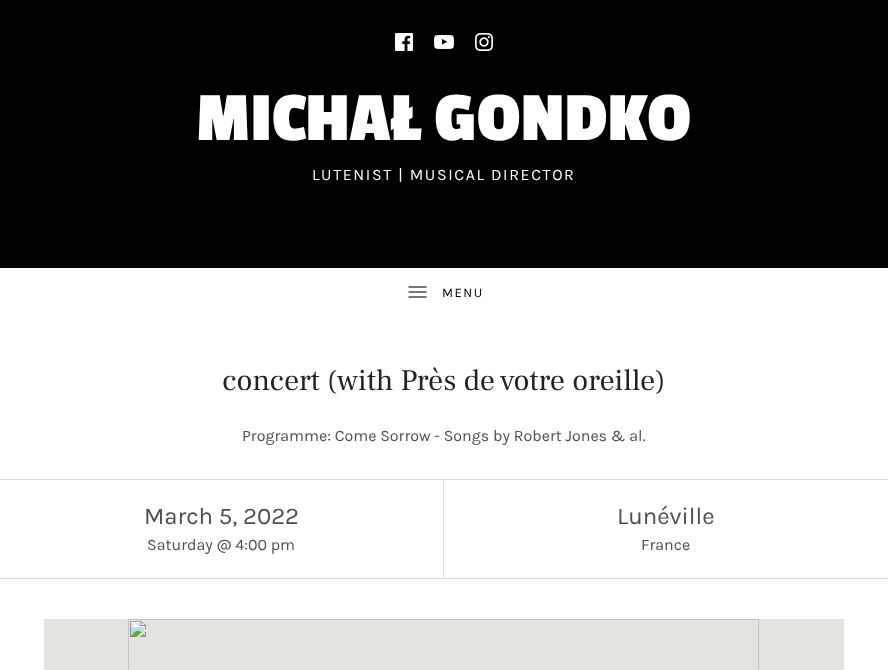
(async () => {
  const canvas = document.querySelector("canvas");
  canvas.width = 888;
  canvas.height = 670;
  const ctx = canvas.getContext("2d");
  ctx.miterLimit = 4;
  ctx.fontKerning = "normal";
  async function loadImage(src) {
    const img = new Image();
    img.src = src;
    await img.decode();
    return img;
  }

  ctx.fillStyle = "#ffffff";
  ctx.fillRect(0, 0, 888, 670);
  ctx.fillStyle = "#000000";
  ctx.fillRect(0, 0, 888, 268);
  ctx.drawImage(await loadImage("img/1.png"), 395, 33, 18, 18);
  ctx.drawImage(await loadImage("img/2.png"), 434, 35, 20, 14);
  ctx.drawImage(await loadImage("img/3.png"), 475, 33, 18, 18);
  ctx.drawImage(await loadImage("img/4.png"), 408, 286, 19, 12);
  for (const [x, y, w, h, color] of [
    [0, 479, 888, 1, "#dddddd"],
    [0, 578, 888, 1, "#dddddd"],
    [443, 480, 1, 98, "#dddddd"],
  ]) {
    ctx.fillStyle = color;
    ctx.fillRect(x, y, w, h);
  }
  ctx.drawImage(await loadImage("img/5.png"), 44, 619, 800, 51);
  ctx.font = "bold 72px Passion One";
  ctx.fillStyle = "#ffffff";
  ctx.fillText("MICHAŁ GONDKO", 196, 140);
  ctx.letterSpacing = "1.6px";
  ctx.font = "16px Karla";
  ctx.fillText("LUTENIST | MUSICAL DIRECTOR", 312, 180);
  ctx.letterSpacing = "1.5px";
  ctx.font = "13px Karla";
  ctx.fillStyle = "#000000";
  ctx.fillText("MENU", 442, 297);
  ctx.letterSpacing = "0px";
  ctx.font = "30px Frank Ruhl Libre";
  ctx.fillStyle = "#222222";
  ctx.fillText("concert (with Près de votre oreille)", 222, 390);
  ctx.font = "16px Karla";
  ctx.fillStyle = "#4d4d4d";
  ctx.fillText("Programme: Come Sorrow - Songs by Robert Jones & al.", 242, 441);
  ctx.font = "24px Karla";
  ctx.fillText("March 5, 2022", 144, 524);
  ctx.font = "16px Karla";
  ctx.fillText("Saturday @ 4:00 pm", 147, 550);
  ctx.font = "24px Karla";
  ctx.fillText("Lunéville", 617, 524);
  ctx.font = "16px Karla";
  ctx.fillText("France", 641, 550);
})();
